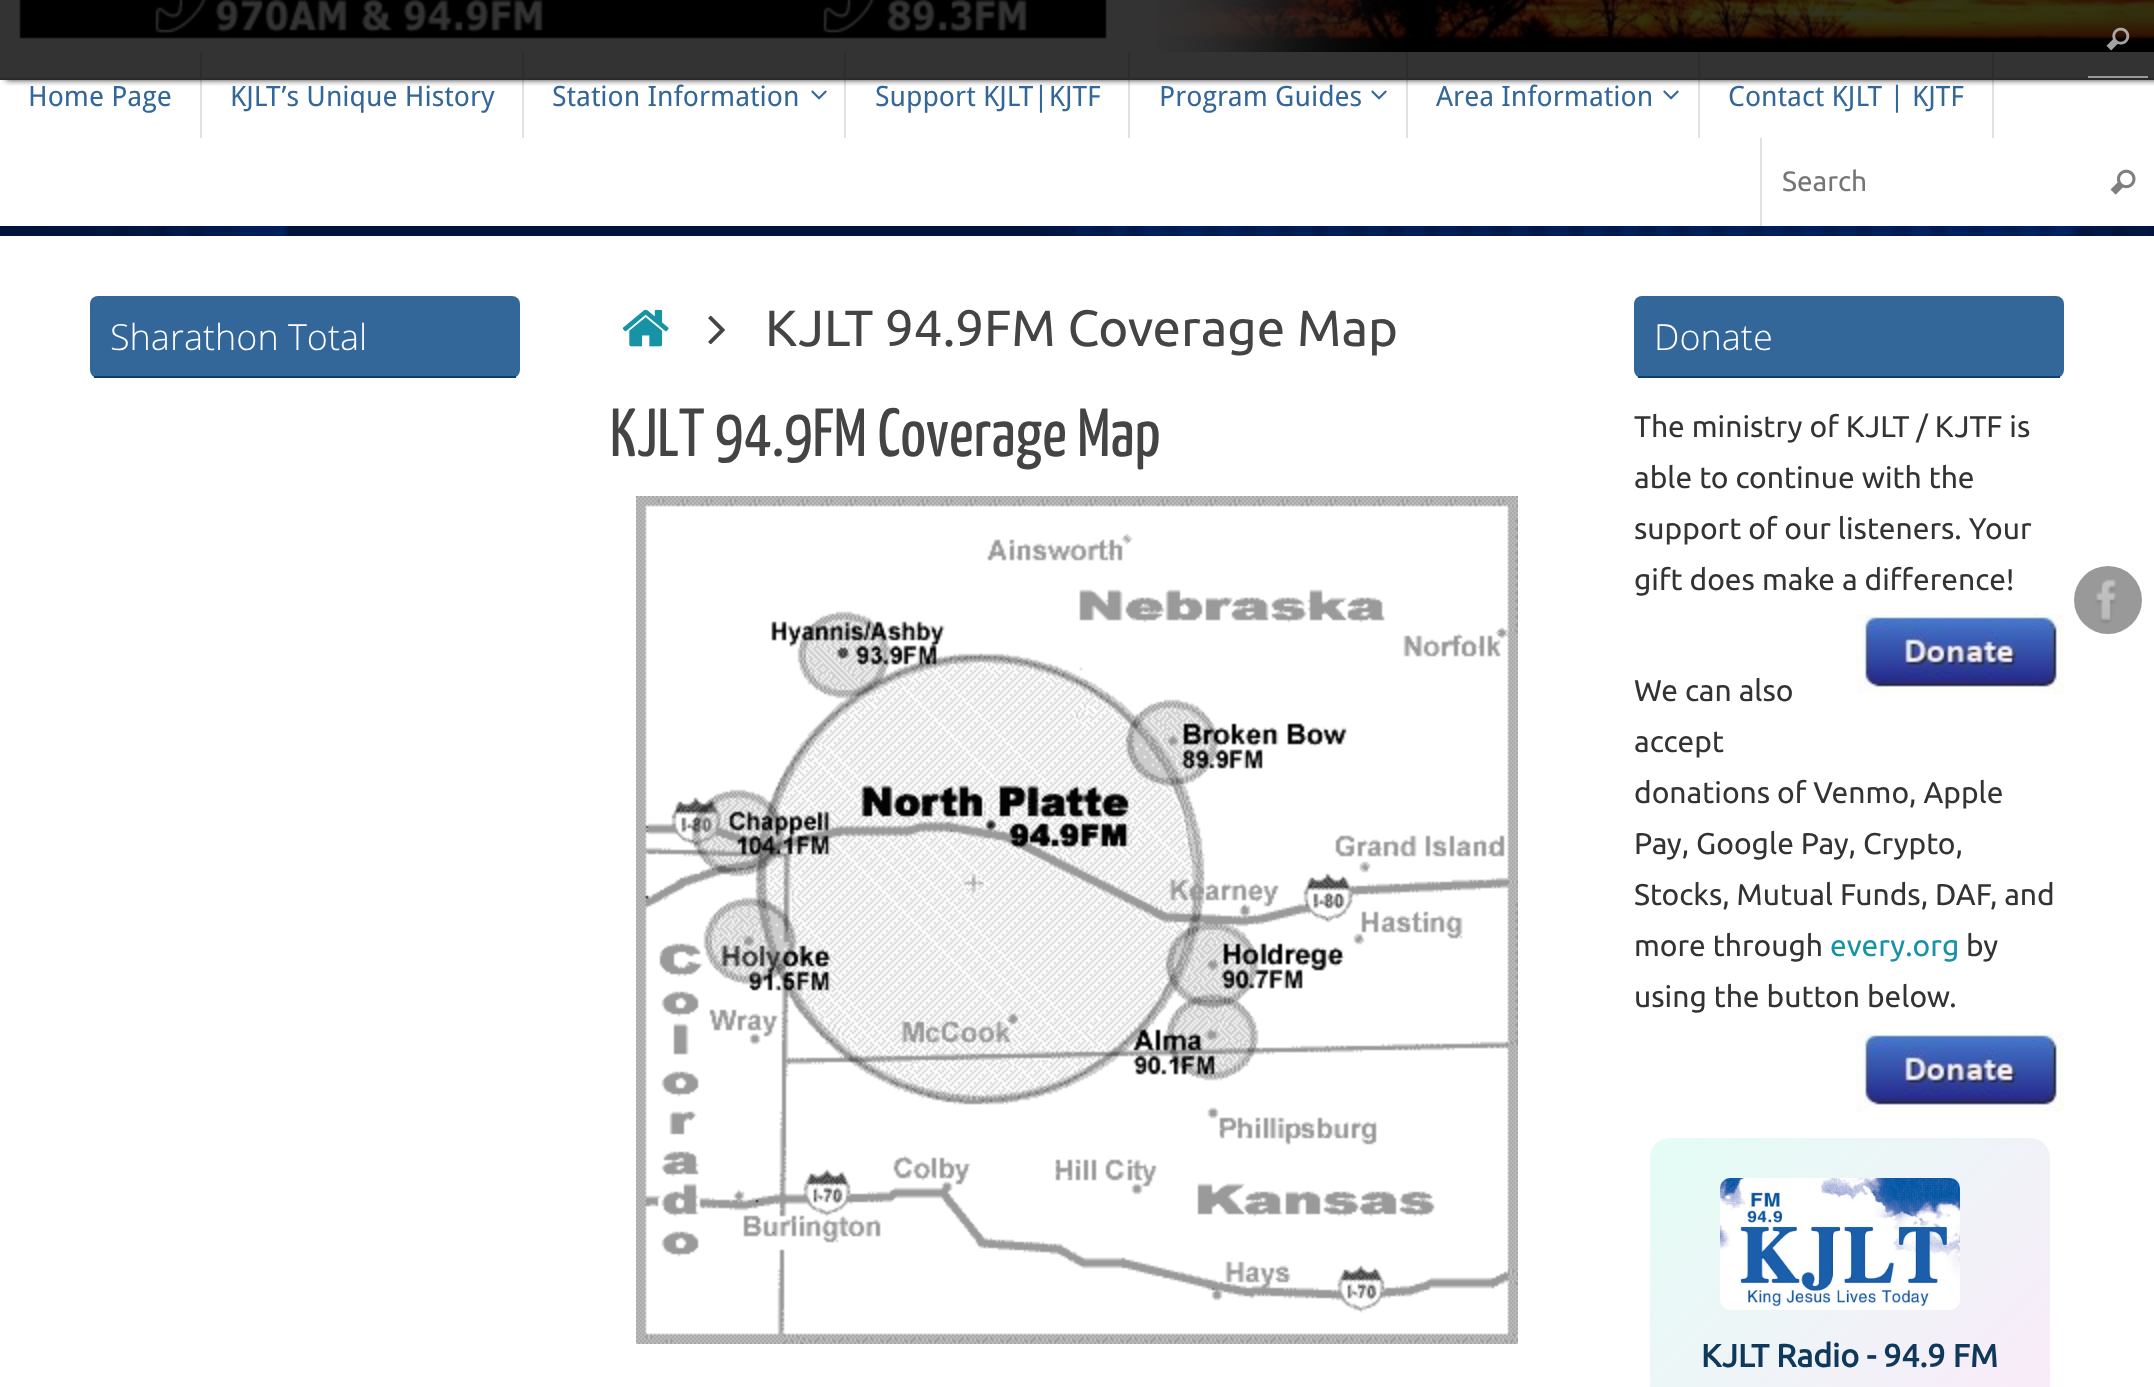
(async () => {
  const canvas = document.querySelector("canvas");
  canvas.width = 2154;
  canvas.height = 1387;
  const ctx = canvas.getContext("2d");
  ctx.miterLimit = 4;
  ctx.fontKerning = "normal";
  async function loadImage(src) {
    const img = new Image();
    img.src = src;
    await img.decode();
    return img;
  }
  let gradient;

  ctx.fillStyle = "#ffffff";
  ctx.fillRect(0, 0, 2154, 1387);
  ctx.drawImage(await loadImage("img/1.png"), 0, 226, 2154, 10);
  ctx.drawImage(await loadImage("img/3.png"), 19, 0, 1088, 39);
  ctx.drawImage(await loadImage("img/4.png"), 1155, 0, 999, 52);
  for (const [x, y, w, h, color] of [
    [200, 52, 2, 86, "#e1e1e1"],
    [522, 52, 2, 86, "#e1e1e1"],
    [844, 52, 2, 86, "#e1e1e1"],
    [1128, 52, 2, 86, "#e1e1e1"],
    [1406, 52, 2, 86, "#e1e1e1"],
    [1698, 52, 2, 86, "#e1e1e1"],
    [1992, 52, 2, 86, "#e1e1e1"],
  ]) {
    ctx.fillStyle = color;
    ctx.fillRect(x, y, w, h);
  }
  ctx.save();
  ctx.beginPath();
  ctx.rect(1, 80, 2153, 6);
  ctx.clip();
  ctx.fillStyle = "rgba(0, 0, 0, 0.8)";
  ctx.filter = "blur(3px)";
  ctx.beginPath();
  ctx.rect(6, 0, 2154, 80);
  ctx.fill();
  ctx.filter = "none";
  ctx.restore();
  ctx.fillStyle = "rgba(0, 0, 0, 0.8)";
  ctx.fillRect(0, 0, 2154, 80);
  ctx.fillStyle = "rgba(40, 40, 40, 0.8)";
  ctx.fillRect(0, 78, 2154, 2);
  ctx.drawImage(await loadImage("img/2.png"), 2106, 27, 24, 24);
  ctx.fillStyle = "#999999";
  ctx.fillRect(2088, 76, 60, 2);
  ctx.drawImage(await loadImage("img/5.png"), 811, 90, 16, 10);
  ctx.drawImage(await loadImage("img/5.png"), 1371, 90, 16, 10);
  ctx.drawImage(await loadImage("img/5.png"), 1663, 90, 16, 10);
  ctx.fillStyle = "#e1e1e1";
  ctx.fillRect(1760, 138, 2, 88);
  ctx.drawImage(await loadImage("img/6.png"), 2110, 169, 26, 26);
  ctx.fillStyle = "#336699";
  ctx.beginPath();
  ctx.roundRect(90, 296, 430, 82, 8);
  ctx.fill();
  ctx.fillStyle = "#0b3e71";
  ctx.fillRect(94, 376, 422, 2);
  ctx.drawImage(await loadImage("img/7.png"), 622, 309, 47, 38);
  ctx.drawImage(await loadImage("img/8.png"), 708, 315, 17, 30);
  ctx.drawImage(await loadImage("img/9.png"), 636, 496, 882, 848);
  ctx.fillStyle = "#336699";
  ctx.beginPath();
  ctx.roundRect(1634, 296, 430, 82, 8);
  ctx.fill();
  ctx.fillStyle = "#0b3e71";
  ctx.fillRect(1638, 376, 422, 2);
  ctx.drawImage(await loadImage("img/10.png"), 1856, 614, 208, 80);
  ctx.drawImage(await loadImage("img/10.png"), 1856, 1032, 208, 80);
  gradient = ctx.createLinearGradient(1644, 1145, 2057, 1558);
  gradient.addColorStop(0, "#e3fdf5");
  gradient.addColorStop(1, "#ffe6fa");
  ctx.fillStyle = gradient;
  ctx.beginPath();
  ctx.roundRect(1650, 1138, 400, 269, 20);
  ctx.fill();
  ctx.drawImage(await loadImage("img/11.png"), 1720, 1178, 240, 132);
  ctx.fillStyle = "#999999";
  ctx.beginPath();
  ctx.arc(2108, 600, 34, 0, Math.PI * 2);
  ctx.fill();
  ctx.drawImage(await loadImage("img/12.png"), 2095, 579, 21, 45);
  ctx.font = "28px Droid Sans";
  ctx.fillStyle = "#336699";
  for (const [text, x, y] of [
    ["Home Page", 28, 106],
    ["KJLT’s Unique History", 230, 106],
    ["Station Information", 552, 106],
    ["Support KJLT|KJTF", 875, 106],
    ["Program Guides", 1159, 106],
    ["Area Information", 1436, 106],
    ["Contact KJLT | KJTF", 1728, 106],
  ]) {
    ctx.fillText(text, x, y);
  }
  ctx.font = "28px Ubuntu";
  ctx.fillStyle = "#757575";
  ctx.fillText("Search", 1782, 191);
  ctx.font = "300 36px Open Sans";
  ctx.fillStyle = "#ffffff";
  ctx.fillText("Sharathon Total", 110, 350);
  ctx.font = "51px Ubuntu";
  ctx.fillStyle = "#444444";
  ctx.fillText("KJLT 94.9FM Coverage Map", 765, 346);
  ctx.font = "68px Yanone Kaffeesatz";
  ctx.fillText("KJLT 94.9FM Coverage Map", 610, 456);
  ctx.font = "300 36px Open Sans";
  ctx.fillStyle = "#ffffff";
  ctx.fillText("Donate", 1654, 350);
  ctx.font = "30px Ubuntu";
  ctx.fillStyle = "#333333";
  for (const [text, x, y] of [
    ["The ministry of KJLT / KJTF is", 1634, 437],
    ["able to continue with the", 1634, 488],
    ["support of our listeners. Your", 1634, 539],
    ["gift does make a difference!", 1634, 590],
    ["We can also", 1634, 701],
    ["accept", 1634, 752],
    ["donations of Venmo, Apple", 1634, 803],
    ["Pay, Google Pay, Crypto,", 1634, 854],
    ["Stocks, Mutual Funds, DAF, and", 1634, 905],
    ["more through", 1634, 956],
  ]) {
    ctx.fillText(text, x, y);
  }
  ctx.fillStyle = "#1693a5";
  ctx.fillText("every.org", 1830, 956);
  ctx.fillStyle = "#333333";
  ctx.fillText("by", 1966, 956);
  ctx.fillText("using the button below.", 1634, 1007);
  ctx.font = "bold 32px Ubuntu";
  ctx.fillStyle = "#0e395b";
  ctx.fillText("KJLT Radio - 94.9 FM", 1701, 1367);
})();
